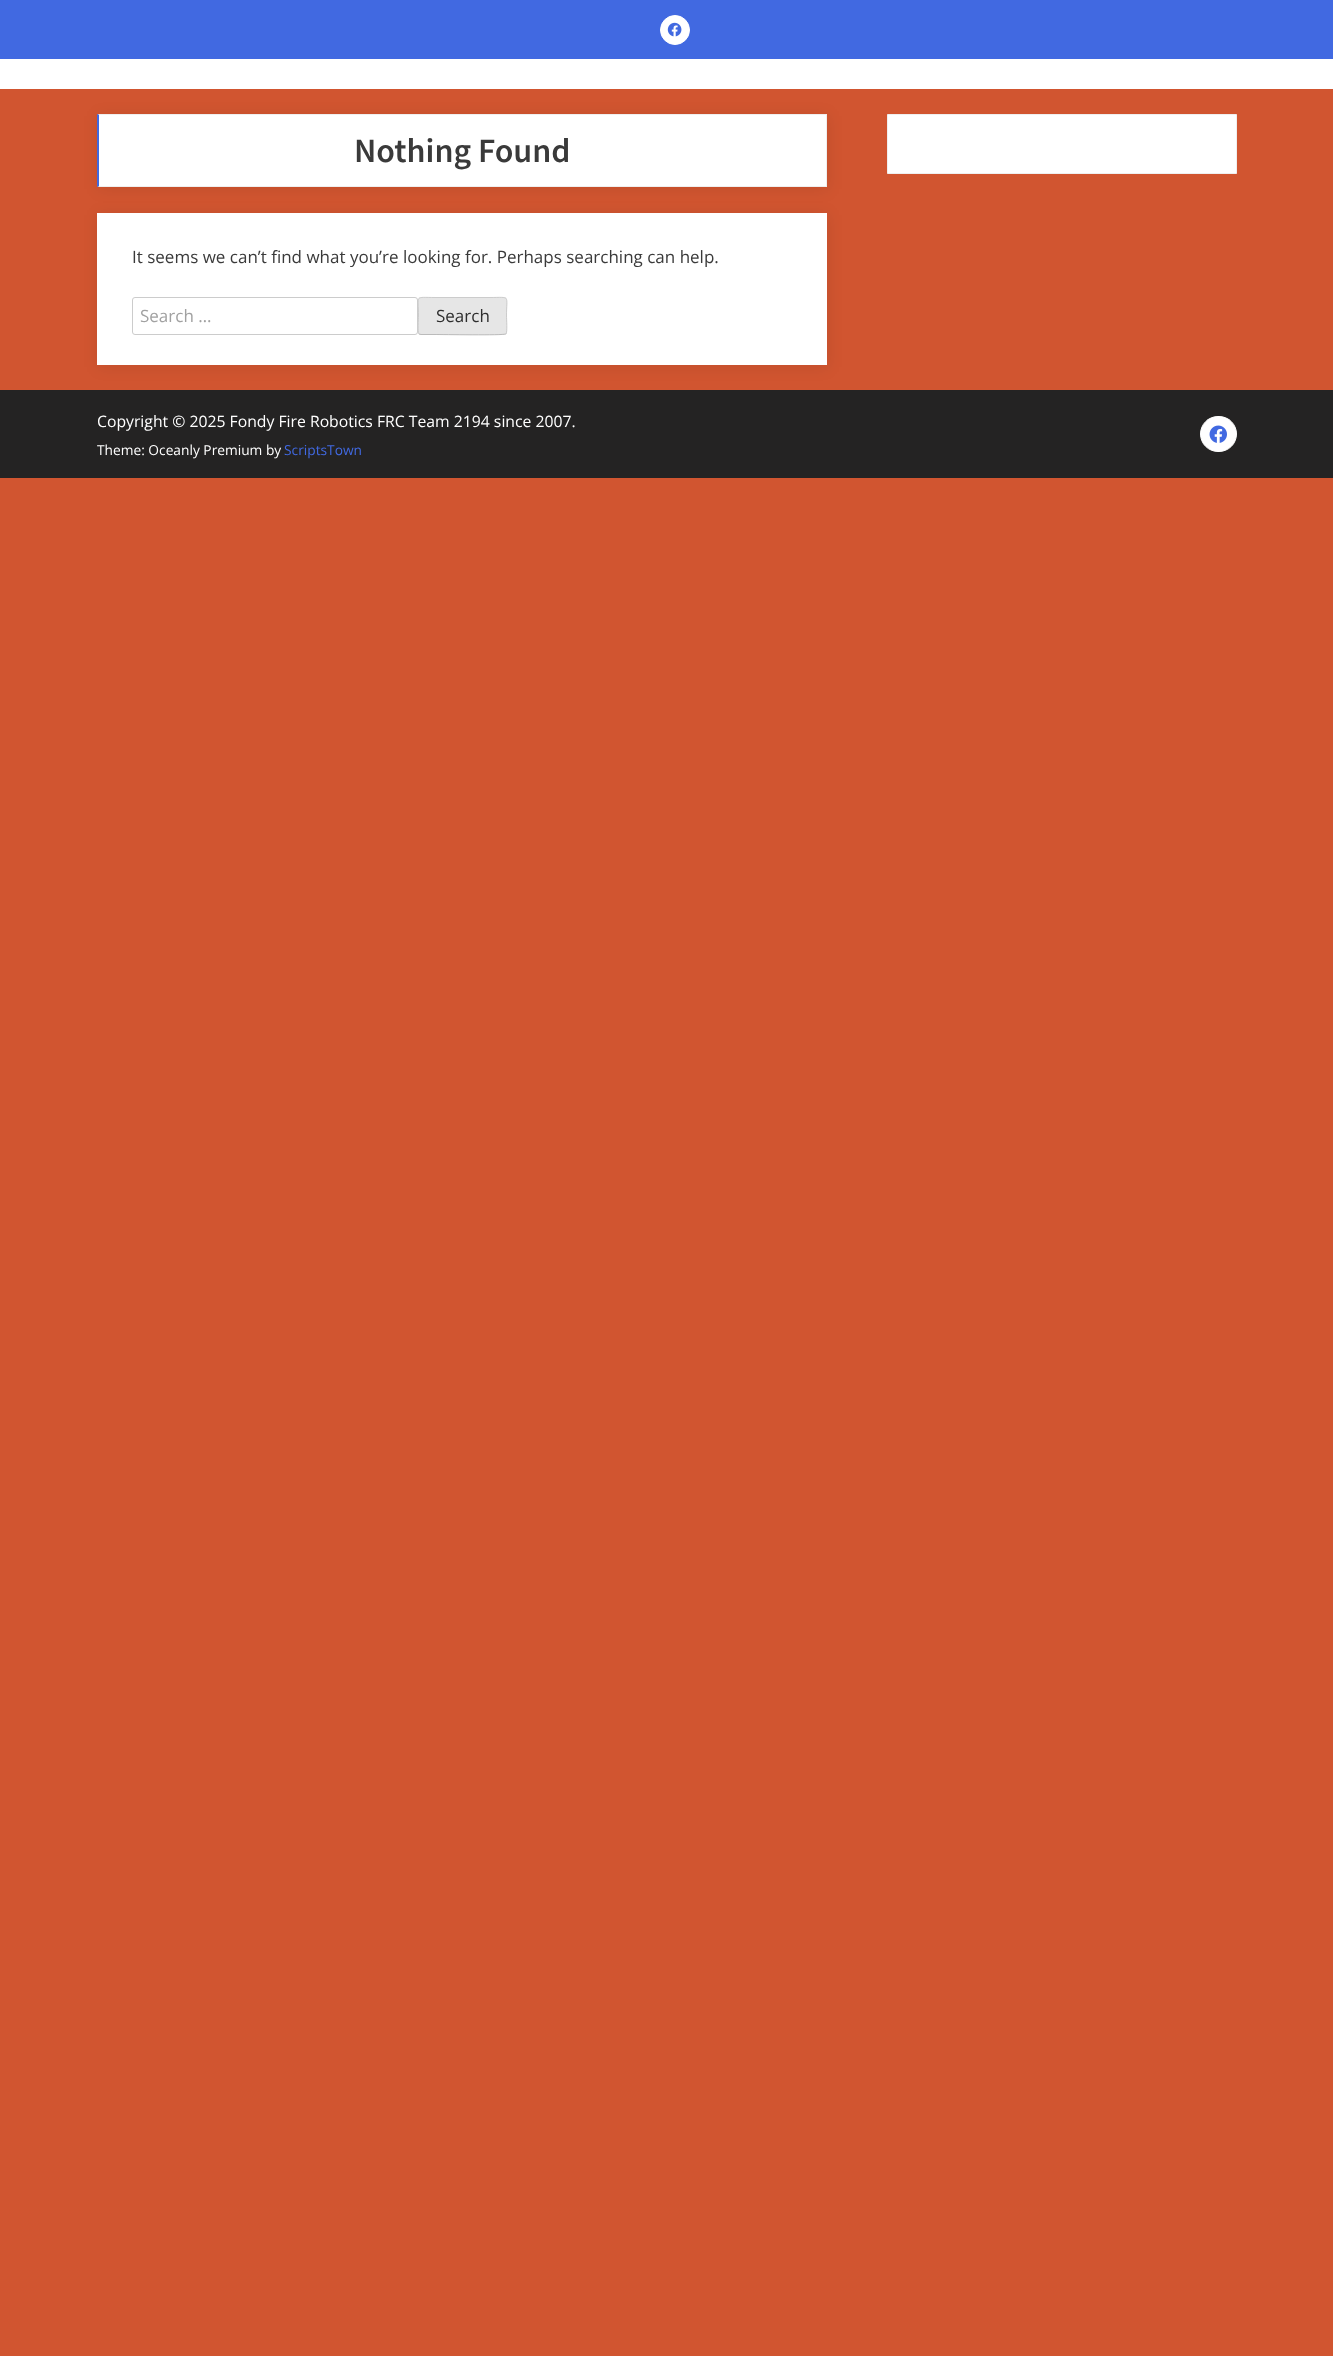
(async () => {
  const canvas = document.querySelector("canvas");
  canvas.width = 1333;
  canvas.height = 2356;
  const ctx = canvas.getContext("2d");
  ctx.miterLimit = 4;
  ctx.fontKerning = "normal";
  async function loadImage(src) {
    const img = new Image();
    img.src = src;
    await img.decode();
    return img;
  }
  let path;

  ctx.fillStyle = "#d15530";
  ctx.fillRect(0, 0, 1333, 2356);
  ctx.fillStyle = "#4169e1";
  ctx.fillRect(0, 0, 1333, 59);
  ctx.fillStyle = "#ffffff";
  ctx.beginPath();
  ctx.arc(675, 30, 14.5, 0, Math.PI * 2);
  ctx.fill();
  ctx.strokeStyle = "#ffffff";
  ctx.stroke();
  ctx.drawImage(await loadImage("img/1.png"), 667, 22, 15, 15);
  ctx.fillRect(0, 59, 1333, 30);
  ctx.fillStyle = "rgba(0, 0, 0, 0.08)";
  ctx.filter = "blur(8px)";
  ctx.beginPath();
  ctx.rect(98, 116, 730, 73);
  ctx.fill();
  ctx.filter = "none";
  ctx.fillStyle = "#ffffff";
  ctx.fillRect(99, 115, 727, 71);
  ctx.fillStyle = "#efefef";
  path = new Path2D("M97 114H827L826 115H99Z");
  ctx.fill(path);
  ctx.fillRect(826, 114, 1, 73);
  path = new Path2D("M827 187H97L99 186H826Z");
  ctx.fill(path);
  ctx.fillStyle = "#4169e1";
  path = new Path2D("M97 187V114L99 115V186Z");
  ctx.fill(path);
  ctx.fillStyle = "#242323";
  ctx.fillRect(0, 390, 1333, 88);
  ctx.fillStyle = "rgba(0, 0, 0, 0.08)";
  ctx.filter = "blur(8px)";
  ctx.beginPath();
  ctx.rect(98, 215, 730, 152);
  ctx.fill();
  ctx.filter = "none";
  ctx.fillStyle = "#ffffff";
  ctx.fillRect(97, 213, 730, 152);
  ctx.beginPath();
  ctx.roundRect(132.5, 297.5, 285, 37, 2.5);
  ctx.strokeStyle = "#cccccc";
  ctx.stroke();
  ctx.fillStyle = "#e6e6e6";
  ctx.beginPath();
  ctx.roundRect(418, 297, 89, 38, 3);
  ctx.fill();
  path = new Path2D("M506 334H505.5C503.5 335.5 442 334.5 435 334.5H421L419 334");
  ctx.strokeStyle = "#bbbbbb";
  ctx.stroke(path);
  path = new Path2D("M419 334C417.5 332 418.5 319 418.5 316C418.5 294.5 414 297.5 435 297.5H490C511 297.5 506.5 294.5 506.5 316C506.5 319 507.5 332 506 334");
  ctx.strokeStyle = "#cccccc";
  ctx.stroke(path);
  ctx.fillStyle = "#ffffff";
  ctx.beginPath();
  ctx.rect(887.5, 114.5, 349, 59);
  ctx.fill();
  ctx.strokeStyle = "#efefef";
  ctx.stroke();
  ctx.beginPath();
  ctx.roundRect(1200.5, 416.5, 36, 35, 17.5);
  ctx.fill();
  ctx.strokeStyle = "#ffffff";
  ctx.stroke();
  ctx.drawImage(await loadImage("img/2.png"), 1209, 425, 18, 18);
  ctx.font = "600 34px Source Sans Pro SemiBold";
  ctx.fillStyle = "#3a3a3a";
  ctx.fillText("Nothing Found", 354, 162);
  ctx.font = "17px Open Sans";
  ctx.fillText("It seems we can’t find what you’re looking for. Perhaps searching can help.", 132, 263);
  ctx.fillStyle = "#a1a1a1";
  ctx.fillText("Search …", 140, 322);
  ctx.fillStyle = "#2e2e2e";
  ctx.fillText("Search", 436, 322);
  ctx.font = "15.75px Open Sans";
  ctx.fillStyle = "#ffffff";
  ctx.fillText("Copyright © 2025 Fondy Fire Robotics FRC Team 2194 since 2007.", 97, 427);
  ctx.font = "13.75px Open Sans";
  ctx.fillText("Theme: Oceanly Premium by", 97, 455);
  ctx.fillStyle = "#4169e1";
  ctx.fillText("ScriptsTown", 284, 455);
})();
